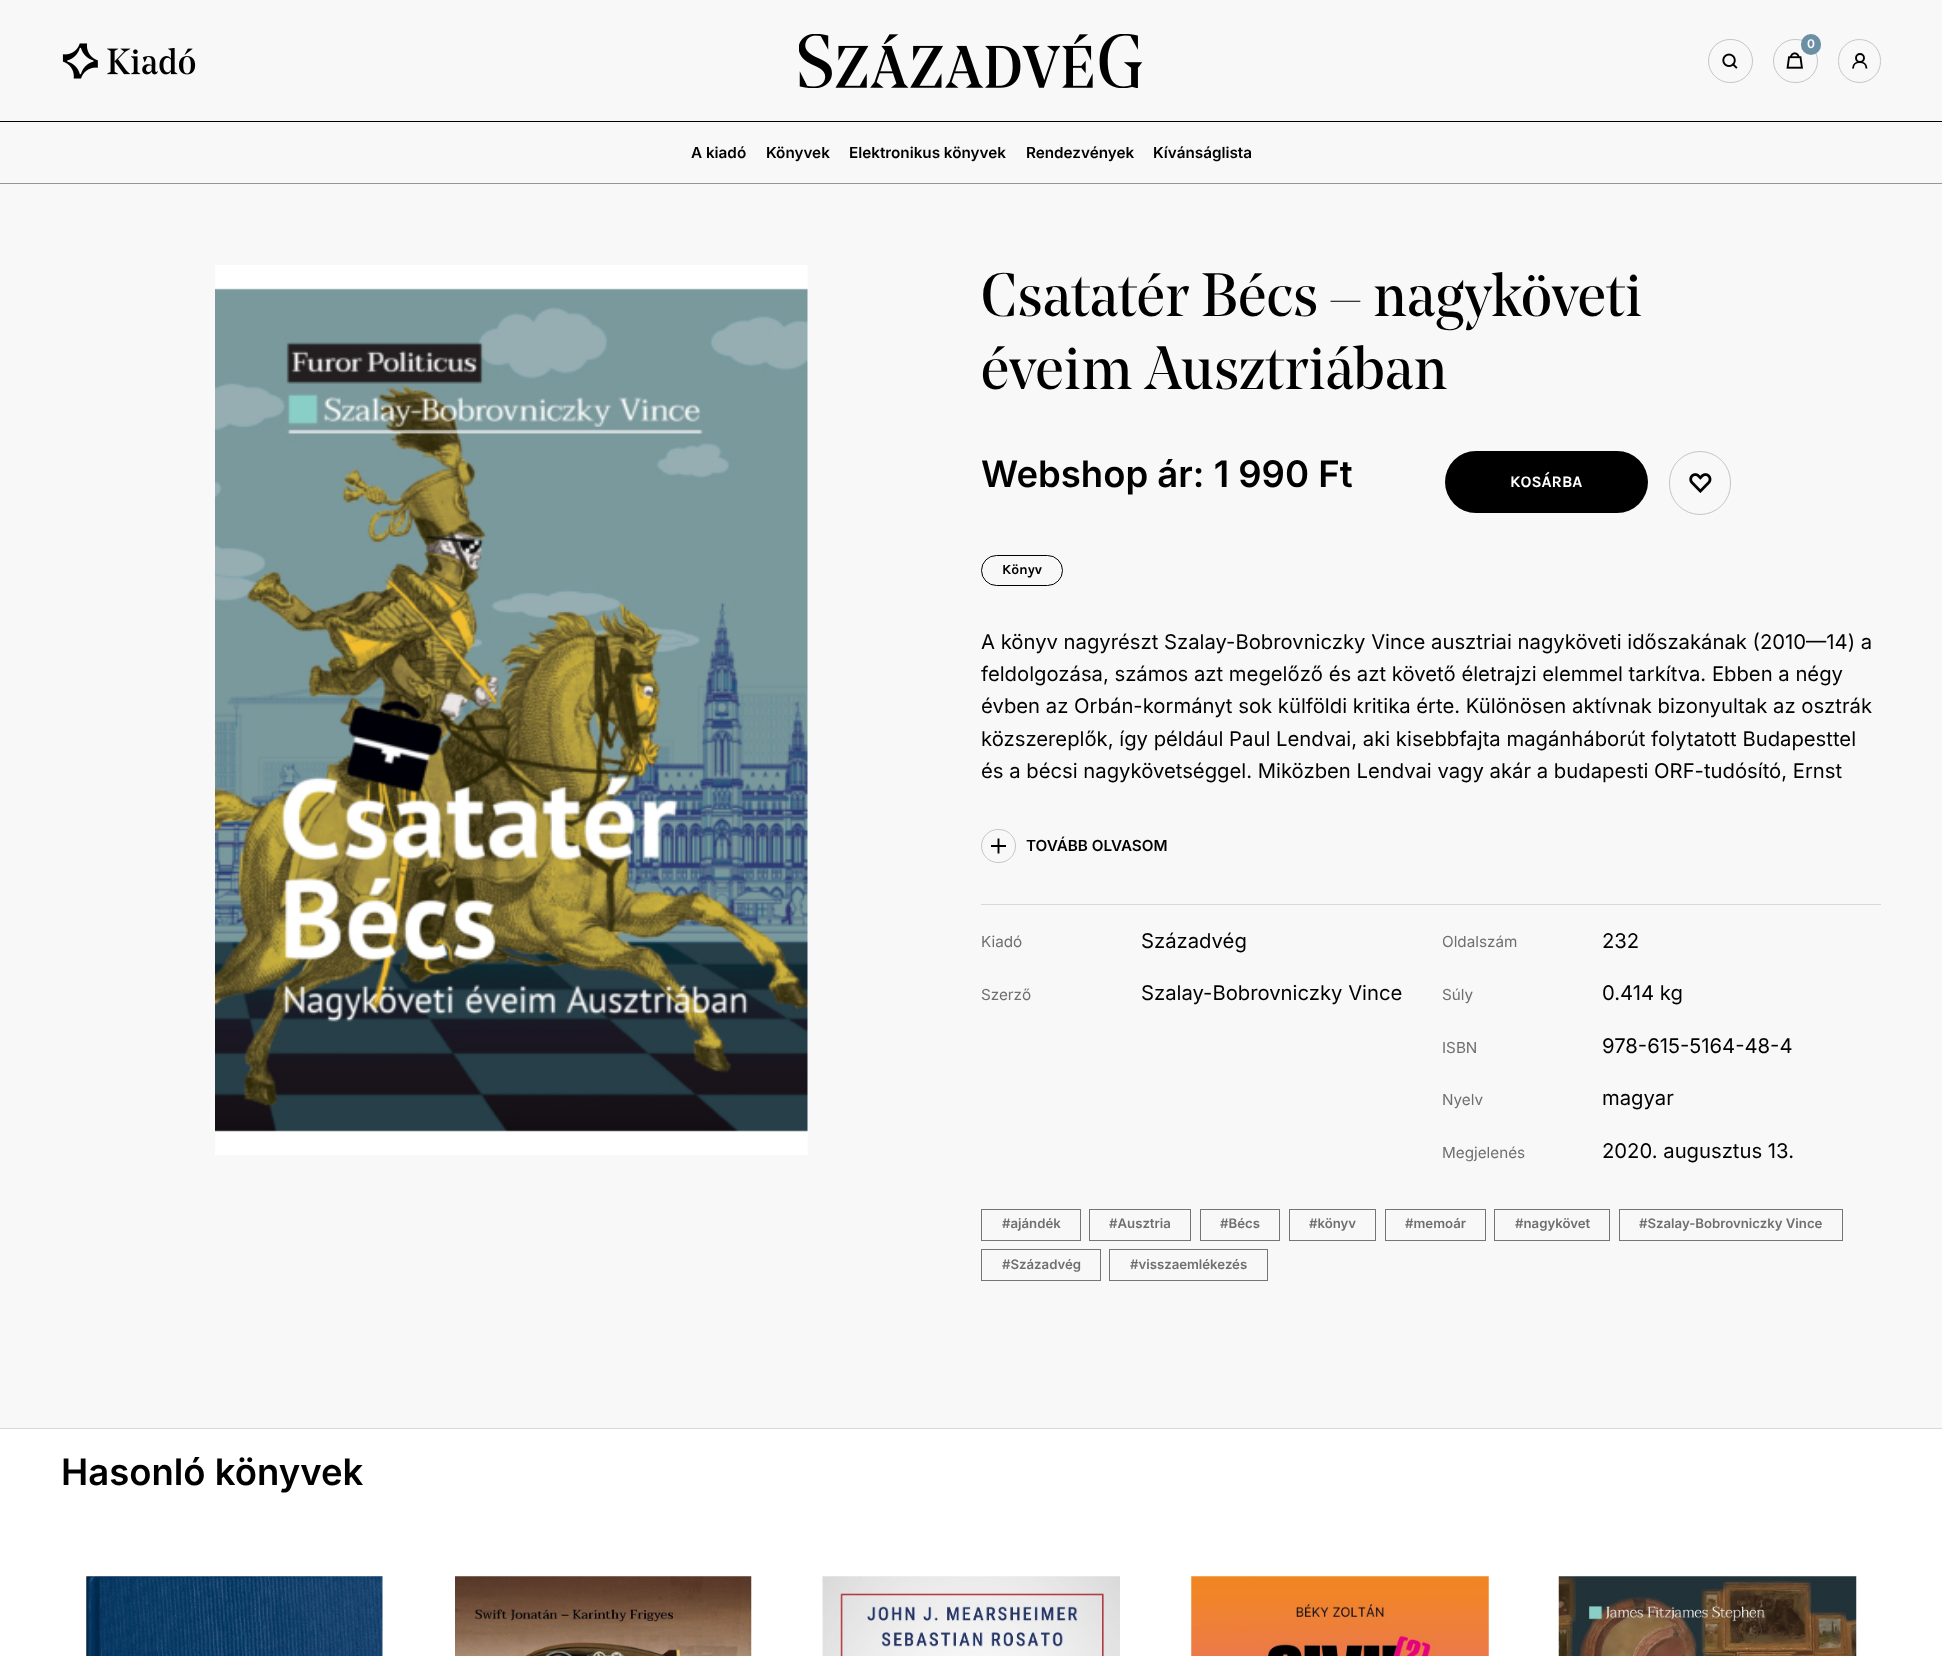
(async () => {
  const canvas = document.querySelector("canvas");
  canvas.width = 1942;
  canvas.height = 1656;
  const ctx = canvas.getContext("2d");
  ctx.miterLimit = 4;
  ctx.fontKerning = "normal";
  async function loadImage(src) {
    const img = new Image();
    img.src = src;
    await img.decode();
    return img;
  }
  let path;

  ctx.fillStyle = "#ffffff";
  ctx.fillRect(0, 0, 1942, 1656);
  ctx.fillStyle = "#f8f8f8";
  ctx.fillRect(0, 0, 1942, 183);
  ctx.fillStyle = "#000000";
  ctx.fillRect(0, 121, 1942, 1);
  ctx.drawImage(await loadImage("img/1.png"), 62, 43, 134, 36);
  ctx.drawImage(await loadImage("img/2.png"), 799, 34, 344, 54);
  ctx.beginPath();
  ctx.roundRect(1708.5, 39.5, 44, 43, 21.5);
  ctx.strokeStyle = "#c6c6c6";
  ctx.stroke();
  ctx.drawImage(await loadImage("img/3.png"), 1722, 53, 16, 16);
  ctx.beginPath();
  ctx.roundRect(1773.5, 39.5, 44, 43, 21.5);
  ctx.stroke();
  ctx.drawImage(await loadImage("img/4.png"), 1786, 52, 17, 17);
  ctx.fillStyle = "#6b8fa3";
  ctx.beginPath();
  ctx.roundRect(1801, 34, 20, 21, 10);
  ctx.fill();
  ctx.beginPath();
  ctx.roundRect(1838.5, 39.5, 42, 43, 21);
  ctx.stroke();
  path = new Path2D("M1866.5 68.5C1866.5 60 1853 60 1853 68.5");
  ctx.strokeStyle = "#000000";
  ctx.lineWidth = 1.9;
  ctx.stroke(path);
  ctx.beginPath();
  ctx.arc(1860, 58, 4, 0, Math.PI * 2);
  ctx.stroke();
  ctx.fillStyle = "#959595";
  ctx.fillRect(0, 183, 1942, 1);
  ctx.fillStyle = "#f8f8f8";
  ctx.fillRect(0, 184, 1942, 1244);
  ctx.drawImage(await loadImage("img/5.png"), 215, 265, 593, 890);
  ctx.fillStyle = "#000000";
  ctx.beginPath();
  ctx.roundRect(1445, 451, 203, 62, 31);
  ctx.fill();
  ctx.beginPath();
  ctx.roundRect(1669.5, 451.5, 61, 63, 30.5);
  ctx.strokeStyle = "#c6c6c6";
  ctx.lineWidth = 1;
  ctx.stroke();
  ctx.drawImage(await loadImage("img/6.png"), 1689, 473, 23, 20);
  ctx.beginPath();
  ctx.roundRect(981.5, 555.5, 81, 30, 15);
  ctx.strokeStyle = "#000000";
  ctx.stroke();
  ctx.beginPath();
  ctx.roundRect(981.5, 829.5, 34, 33, 16.5);
  ctx.strokeStyle = "#c6c6c6";
  ctx.stroke();
  path = new Path2D("M998.5 838.5V853.5M1006 846H991");
  ctx.strokeStyle = "#000000";
  ctx.lineWidth = 1.9;
  ctx.stroke(path);
  ctx.fillStyle = "#d8d8d8";
  ctx.fillRect(981, 904, 900, 1);
  ctx.strokeStyle = "#757575";
  ctx.lineWidth = 1;
  ctx.strokeRect(981.5, 1209.5, 99, 31);
  ctx.strokeRect(1089.5, 1209.5, 101, 31);
  ctx.strokeRect(1200.5, 1209.5, 79, 31);
  ctx.strokeRect(1289.5, 1209.5, 86, 31);
  ctx.strokeRect(1385.5, 1209.5, 100, 31);
  ctx.strokeRect(1494.5, 1209.5, 115, 31);
  ctx.strokeRect(1619.5, 1209.5, 223, 31);
  ctx.strokeRect(981.5, 1249.5, 119, 31);
  ctx.strokeRect(1109.5, 1249.5, 158, 31);
  ctx.fillRect(0, 1428, 1942, 1);
  ctx.drawImage(await loadImage("img/7.png"), 86, 1576, 297, 80);
  ctx.drawImage(await loadImage("img/8.png"), 455, 1576, 297, 80);
  ctx.drawImage(await loadImage("img/9.png"), 822, 1576, 298, 80);
  ctx.drawImage(await loadImage("img/10.png"), 1191, 1576, 298, 80);
  ctx.drawImage(await loadImage("img/11.png"), 1558, 1576, 299, 80);
  ctx.font = "600 12px Inter";
  ctx.fillStyle = "#ffffff";
  ctx.fillText("0", 1807, 48);
  ctx.font = "600 15.25px Inter";
  ctx.fillStyle = "#000000";
  for (const [text, x, y] of [
    ["A kiadó", 691, 158],
    ["Könyvek", 766, 158],
    ["Elektronikus könyvek", 849, 158],
    ["Rendezvények", 1026, 158],
    ["Kívánságlista", 1153, 158],
  ]) {
    ctx.fillText(text, x, y);
  }
  ctx.font = "60.75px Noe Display";
  ctx.fillText("Csatatér Bécs – nagyköveti", 981, 316);
  ctx.fillText("éveim Ausztriában", 981, 389);
  ctx.font = "600 36.5px Inter";
  ctx.fillText("Webshop ár: 1 990 Ft", 981, 487);
  ctx.font = "bold 16px Karla";
  ctx.fillStyle = "#ffffff";
  ctx.fillText("KOSÁRBA", 1510, 487);
  ctx.font = "bold 14px Karla";
  ctx.fillStyle = "#000000";
  ctx.fillText("Könyv", 1002, 574);
  ctx.font = "20.25px Inter";
  for (const [text, x, y] of [
    ["A könyv nagyrészt Szalay-Bobrovniczky Vince ausztriai nagyköveti időszakának (2010—14) a", 981, 649],
    ["feldolgozása, számos azt megelőző és azt követő életrajzi elemmel tarkítva. Ebben a négy", 981, 681],
    ["évben az Orbán-kormányt sok külföldi kritika érte. Különösen aktívnak bizonyultak az osztrák", 981, 713],
    ["közszereplők, így például Paul Lendvai, aki kisebbfajta magánháborút folytatott Budapesttel", 981, 746],
    ["és a bécsi nagykövetséggel. Miközben Lendvai vagy akár a budapesti ORF-tudósító, Ernst", 981, 778],
  ]) {
    ctx.fillText(text, x, y);
  }
  ctx.font = "600 15.25px Inter";
  ctx.fillText("TOVÁBB OLVASOM", 1026, 851);
  ctx.font = "15.25px Inter";
  ctx.fillStyle = "#6f6f6f";
  ctx.fillText("Kiadó", 981, 947);
  ctx.font = "20.25px Inter";
  ctx.fillStyle = "#000000";
  ctx.fillText("Századvég", 1141, 948);
  ctx.font = "15.25px Inter";
  ctx.fillStyle = "#6f6f6f";
  ctx.fillText("Szerző", 981, 1000);
  ctx.font = "20.25px Inter";
  ctx.fillStyle = "#000000";
  ctx.fillText("Szalay-Bobrovniczky Vince", 1141, 1000);
  ctx.font = "15.25px Inter";
  ctx.fillStyle = "#6f6f6f";
  ctx.fillText("Oldalszám", 1442, 947);
  ctx.font = "20.25px Inter";
  ctx.fillStyle = "#000000";
  ctx.fillText("232", 1602, 948);
  ctx.font = "15.25px Inter";
  ctx.fillStyle = "#6f6f6f";
  ctx.fillText("Súly", 1442, 1000);
  ctx.font = "20.25px Inter";
  ctx.fillStyle = "#000000";
  ctx.fillText("0.414 kg", 1602, 1000);
  ctx.font = "15.25px Inter";
  ctx.fillStyle = "#6f6f6f";
  ctx.fillText("ISBN", 1442, 1053);
  ctx.font = "20.25px Inter";
  ctx.fillStyle = "#000000";
  ctx.fillText("978-615-5164-48-4", 1602, 1053);
  ctx.font = "15.25px Inter";
  ctx.fillStyle = "#6f6f6f";
  ctx.fillText("Nyelv", 1442, 1105);
  ctx.font = "20.25px Inter";
  ctx.fillStyle = "#000000";
  ctx.fillText("magyar", 1602, 1105);
  ctx.font = "15.25px Inter";
  ctx.fillStyle = "#6f6f6f";
  ctx.fillText("Megjelenés", 1442, 1158);
  ctx.font = "20.25px Inter";
  ctx.fillStyle = "#000000";
  ctx.fillText("2020. augusztus 13.", 1602, 1158);
  ctx.font = "600 13.2px Inter";
  ctx.fillStyle = "#6f6f6f";
  for (const [text, x, y] of [
    ["#ajándék", 1002, 1228],
    ["#Ausztria", 1109, 1228],
    ["#Bécs", 1220, 1228],
    ["#könyv", 1309, 1228],
    ["#memoár", 1405, 1228],
    ["#nagykövet", 1515, 1228],
    ["#Szalay-Bobrovniczky Vince", 1639, 1228],
    ["#Századvég", 1002, 1269],
    ["#visszaemlékezés", 1130, 1269],
  ]) {
    ctx.fillText(text, x, y);
  }
  ctx.font = "600 36.5px Inter";
  ctx.fillStyle = "#000000";
  ctx.fillText("Hasonló könyvek", 61, 1485);
})();
